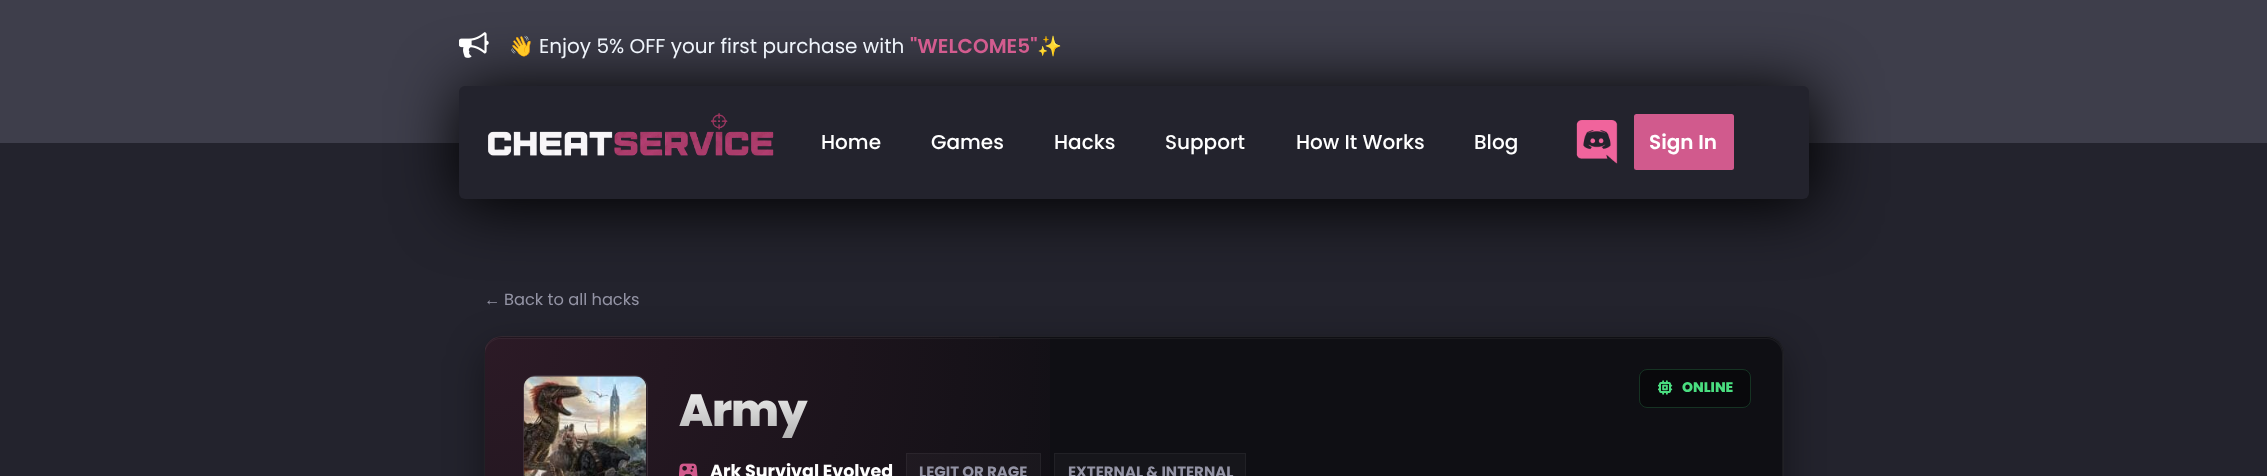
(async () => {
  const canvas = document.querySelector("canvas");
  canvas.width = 2267;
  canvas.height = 476;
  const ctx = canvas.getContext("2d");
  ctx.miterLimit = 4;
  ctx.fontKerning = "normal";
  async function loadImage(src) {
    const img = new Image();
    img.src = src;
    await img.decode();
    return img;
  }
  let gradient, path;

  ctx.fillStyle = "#23232d";
  ctx.fillRect(0, 0, 2267, 476);
  ctx.fillStyle = "#3e3e4b";
  ctx.fillRect(0, 0, 2267, 143);
  ctx.fillStyle = "#000000";
  ctx.filter = "blur(32px)";
  ctx.beginPath();
  ctx.roundRect(459, 88, 1355, 117, 9);
  ctx.fill();
  ctx.filter = "none";
  ctx.drawImage(await loadImage("img/1.png"), 459, 32, 30, 26);
  ctx.fillStyle = "#23232d";
  ctx.beginPath();
  ctx.roundRect(459, 86, 1350, 113, 6);
  ctx.fill();
  ctx.drawImage(await loadImage("img/2.png"), 488, 113, 286, 43);
  ctx.drawImage(await loadImage("img/3.png"), 1576, 120, 42, 44);
  ctx.fillStyle = "#d15a8d";
  ctx.beginPath();
  ctx.roundRect(1634, 114, 100, 56, 2.5);
  ctx.fill();
  ctx.fillStyle = "rgba(0, 0, 0, 0.4)";
  ctx.filter = "blur(19px)";
  ctx.beginPath();
  ctx.roundRect(484, 349, 1300, 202, 18);
  ctx.fill();
  ctx.filter = "none";
  ctx.fillStyle = "#0f0f14";
  ctx.beginPath();
  ctx.roundRect(484, 336, 1300, 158, 18);
  ctx.fill();
  ctx.save();
  ctx.beginPath();
  ctx.roundRect(484, 336, 1300, 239, 18);
  ctx.clip();
  gradient = ctx.createRadialGradient(485, 101, 0, 485, 101, 1319);
  gradient.addColorStop(0, "rgba(209, 89, 140, 0.15)");
  gradient.addColorStop(0.5, "rgba(209, 89, 140, 0)");
  ctx.fillStyle = gradient;
  ctx.fillRect(494, 336, 505, 2);
  gradient = ctx.createRadialGradient(485, 338, 0, 485, 338, 1319);
  gradient.addColorStop(0, "rgba(209, 89, 140, 0.15)");
  gradient.addColorStop(0.5, "rgba(209, 89, 140, 0)");
  ctx.fillStyle = gradient;
  ctx.fillRect(485, 338, 565, 138);
  ctx.restore();
  ctx.fillStyle = "rgba(255, 255, 255, 0.05)";
  path = new Path2D("M501 339H1766C1775 339 1782 346 1782 355V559C1782 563 1781 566 1778 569C1781 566 1783 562 1783 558V354C1783 345 1776 338 1767 338H501C492 338 485 345 485 354V355C485 346 492 339 501 339Z");
  ctx.fill(path);
  ctx.beginPath();
  ctx.roundRect(484.5, 336.5, 1299, 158, 17.5);
  ctx.strokeStyle = "rgba(255, 255, 255, 0.08)";
  ctx.stroke();
  ctx.fillStyle = "#09090c";
  ctx.beginPath();
  ctx.roundRect(1639, 369, 112, 39, 8);
  ctx.fill();
  ctx.beginPath();
  ctx.roundRect(1639.5, 369.5, 111, 38, 7.5);
  ctx.strokeStyle = "rgba(74, 222, 128, 0.2)";
  ctx.stroke();
  ctx.drawImage(await loadImage("img/4.png"), 1658, 380, 15, 15);
  ctx.beginPath();
  ctx.roundRect(523.5, 375.5, 124, 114, 12.5);
  ctx.strokeStyle = "rgba(255, 255, 255, 0.1)";
  ctx.stroke();
  ctx.drawImage(await loadImage("img/5.png"), 523, 376, 124, 100);
  ctx.drawImage(await loadImage("img/6.png"), 679, 463, 19, 13);
  ctx.fillStyle = "rgba(255, 255, 255, 0.03)";
  ctx.fillRect(906, 453, 135, 23);
  ctx.strokeStyle = "rgba(255, 255, 255, 0.05)";
  ctx.strokeRect(906.5, 453.5, 134, 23);
  ctx.fillRect(1054, 453, 192, 23);
  ctx.strokeRect(1054.5, 453.5, 191, 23);
  ctx.font = "20px Noto Color Emoji";
  ctx.fillStyle = "#eff4fb";
  ctx.fillText("👋", 509, 53);
  ctx.font = "20px Poppins";
  ctx.fillText("Enjoy 5% OFF your first purchase with", 539, 53);
  ctx.font = "600 20px Poppins";
  ctx.fillStyle = "#d35c8f";
  ctx.fillText("\"WELCOME5\"", 910, 53);
  ctx.font = "20px Noto Color Emoji";
  ctx.fillStyle = "#eff4fb";
  ctx.fillText("✨", 1037, 53);
  ctx.font = "500 20px Poppins";
  ctx.fillStyle = "#ffffff";
  for (const [text, x, y] of [
    ["Home", 821, 149],
    ["Games", 931, 149],
    ["Hacks", 1054, 149],
    ["Support", 1165, 149],
    ["How It Works", 1296, 149],
    ["Blog", 1474, 149],
  ]) {
    ctx.fillText(text, x, y);
  }
  ctx.font = "600 20px Poppins";
  ctx.fillText("Sign In", 1649, 149);
  ctx.font = "16.25px Liberation Serif";
  ctx.fillStyle = "#9494a5";
  ctx.fillText("←", 484, 305);
  ctx.font = "16.25px Poppins";
  ctx.fillText("Back to all hacks", 504, 305);
  ctx.font = "800 14px Poppins";
  ctx.fillStyle = "#4ade80";
  ctx.fillText("ONLINE", 1682, 392);
  ctx.letterSpacing = "-1px";
  ctx.font = "800 45px Poppins";
  gradient = ctx.createLinearGradient(963, 375, 963, 447);
  gradient.addColorStop(0, "#ffffff");
  gradient.addColorStop(1, "#aaaaaa");
  ctx.fillStyle = gradient;
  ctx.fillText("Army", 679, 426);
  ctx.letterSpacing = "0px";
  ctx.font = "bold 17.5px Poppins";
  ctx.fillStyle = "#ffffff";
  ctx.fillText("Ark Survival Evolved", 710, 477);
  ctx.font = "bold 15px Poppins";
  ctx.fillStyle = "#9494a5";
  ctx.fillText("LEGIT OR RAGE", 919, 477);
  ctx.fillText("EXTERNAL & INTERNAL", 1068, 477);
})();
